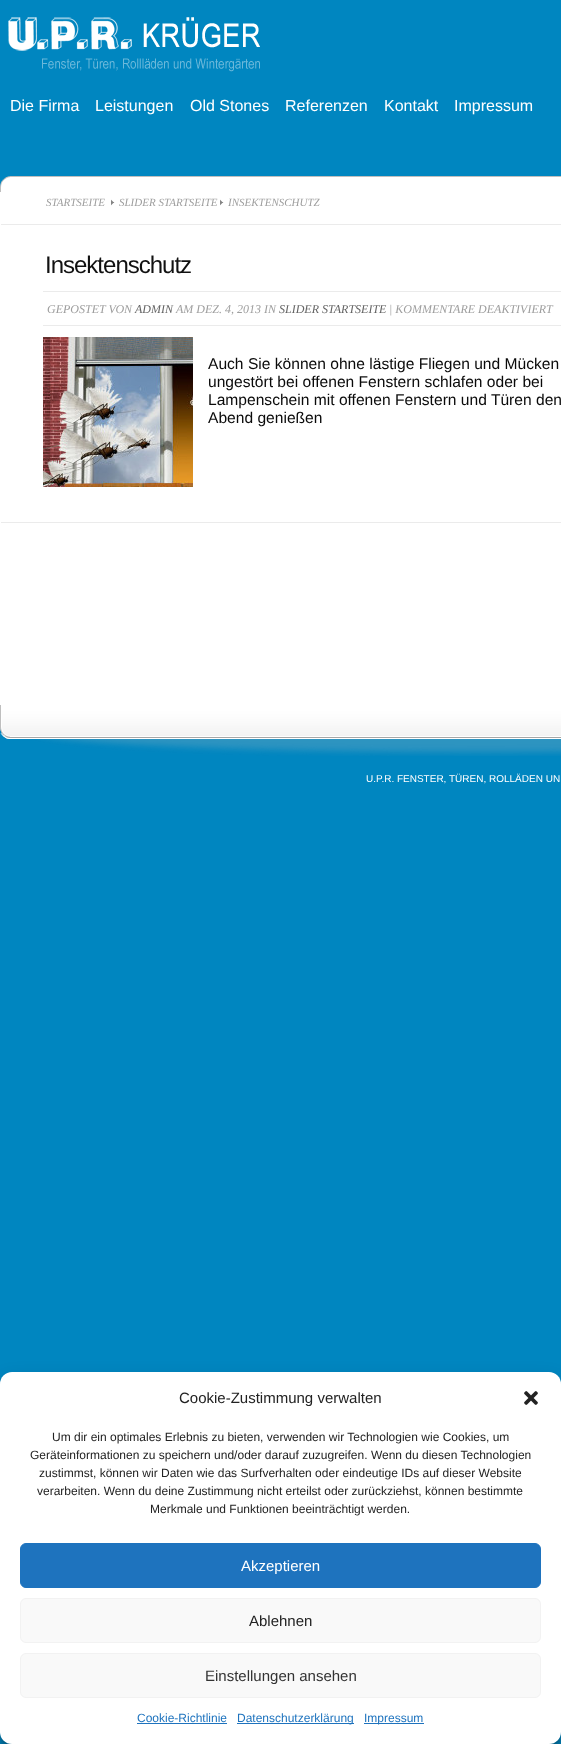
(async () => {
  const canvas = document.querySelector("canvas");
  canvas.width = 561;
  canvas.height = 1744;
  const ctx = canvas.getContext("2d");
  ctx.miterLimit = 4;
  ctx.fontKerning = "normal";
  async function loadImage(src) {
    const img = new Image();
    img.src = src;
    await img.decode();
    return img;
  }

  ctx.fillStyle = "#0086c0";
  ctx.fillRect(0, 0, 561, 1744);
  ctx.drawImage(await loadImage("img/1.png"), 8, 17, 252, 55);
  ctx.drawImage(await loadImage("img/2.png"), 0, 176, 561, 16);
  ctx.fillStyle = "#ffffff";
  ctx.fillRect(0, 192, 561, 513);
  ctx.fillStyle = "#ebebeb";
  ctx.fillRect(1, 224, 560, 1);
  ctx.drawImage(await loadImage("img/3.png"), 111, 199, 4, 7);
  ctx.drawImage(await loadImage("img/3.png"), 220, 199, 4, 7);
  ctx.fillRect(43, 291, 518, 1);
  ctx.fillRect(43, 325, 518, 1);
  ctx.drawImage(await loadImage("img/4.png"), 43, 337, 150, 150);
  ctx.fillRect(1, 522, 560, 1);
  ctx.drawImage(await loadImage("img/5.png"), 0, 705, 561, 51);
  ctx.fillStyle = "rgba(0, 0, 0, 0.23)";
  ctx.filter = "blur(3px)";
  ctx.beginPath();
  ctx.roundRect(0, 1378, 561, 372, 12);
  ctx.fill();
  ctx.filter = "none";
  ctx.fillStyle = "rgba(0, 0, 0, 0.19)";
  ctx.filter = "blur(10px)";
  ctx.beginPath();
  ctx.roundRect(0, 1382, 561, 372, 12);
  ctx.fill();
  ctx.filter = "none";
  ctx.fillStyle = "#ffffff";
  ctx.beginPath();
  ctx.roundRect(0, 1372, 561, 372, 12);
  ctx.fill();
  ctx.drawImage(await loadImage("img/6.png"), 524, 1391, 14, 14);
  ctx.fillStyle = "#1e73be";
  ctx.beginPath();
  ctx.roundRect(20.5, 1543.5, 520, 44, 5.5);
  ctx.fill();
  ctx.strokeStyle = "#1e73be";
  ctx.stroke();
  ctx.fillStyle = "#f9f9f9";
  ctx.beginPath();
  ctx.roundRect(20.5, 1598.5, 520, 44, 5.5);
  ctx.fill();
  ctx.strokeStyle = "#f2f2f2";
  ctx.stroke();
  ctx.beginPath();
  ctx.roundRect(20.5, 1653.5, 520, 44, 5.5);
  ctx.fill();
  ctx.stroke();
  for (const [x, y, w, h, color] of [
    [137, 1723, 90, 1, "#1e73be"],
    [237, 1723, 117, 1, "#1e73be"],
    [364, 1723, 60, 1, "#1e73be"],
  ]) {
    ctx.fillStyle = color;
    ctx.fillRect(x, y, w, h);
  }
  ctx.font = "16px Liberation Sans";
  ctx.fillStyle = "#ffffff";
  for (const [text, x, y] of [
    ["Die Firma", 10, 111],
    ["Leistungen", 95, 111],
    ["Old Stones", 190, 111],
    ["Referenzen", 285, 111],
    ["Kontakt", 384, 111],
    ["Impressum", 454, 111],
  ]) {
    ctx.fillText(text, x, y);
  }
  ctx.font = "italic 11px Liberation Serif";
  ctx.fillStyle = "#9e9e9e";
  for (const [text, x, y] of [
    ["STARTSEITE", 46, 206],
    ["SLIDER STARTSEITE", 119, 206],
    ["INSEKTENSCHUTZ", 228, 206],
  ]) {
    ctx.fillText(text, x, y);
  }
  ctx.letterSpacing = "-1px";
  ctx.font = "24px Liberation Sans";
  ctx.fillStyle = "#111111";
  ctx.fillText("Insektenschutz", 45, 273);
  ctx.letterSpacing = "0px";
  ctx.font = "italic 12px Liberation Serif";
  ctx.fillStyle = "#9e9e9e";
  ctx.fillText("GEPOSTET VON", 47, 313);
  ctx.fillStyle = "#646464";
  ctx.fillText("ADMIN", 135, 313);
  ctx.fillStyle = "#9e9e9e";
  ctx.fillText("AM DEZ. 4, 2013 IN", 176, 313);
  ctx.fillStyle = "#646464";
  ctx.fillText("SLIDER STARTSEITE", 279, 313);
  ctx.fillStyle = "#9e9e9e";
  ctx.fillText("| KOMMENTARE DEAKTIVIERT", 389, 313);
  ctx.font = "15.6px Liberation Sans";
  ctx.fillStyle = "#0a0a0a";
  for (const [text, x, y] of [
    ["Auch Sie können ohne lästige Fliegen und Mücken", 208, 369],
    ["ungestört bei offenen Fenstern schlafen oder bei", 208, 387],
    ["Lampenschein mit offenen Fenstern und Türen den", 208, 405],
    ["Abend genießen", 208, 423],
  ]) {
    ctx.fillText(text, x, y);
  }
  ctx.font = "10px Liberation Sans";
  ctx.fillStyle = "#ffffff";
  ctx.fillText("U.P.R. FENSTER, TÜREN, ROLLÄDEN UN", 366, 782);
  ctx.font = "15px Liberation Sans";
  ctx.fillStyle = "#222222";
  ctx.fillText("Cookie-Zustimmung verwalten", 179, 1403);
  ctx.font = "12px Liberation Sans";
  for (const [text, x, y] of [
    ["Um dir ein optimales Erlebnis zu bieten, verwenden wir Technologien wie Cookies, um", 52, 1441],
    ["Geräteinformationen zu speichern und/oder darauf zuzugreifen. Wenn du diesen Technologien", 30, 1459],
    ["zustimmst, können wir Daten wie das Surfverhalten oder eindeutige IDs auf dieser Website", 39, 1477],
    ["verarbeiten. Wenn du deine Zustimmung nicht erteilst oder zurückziehst, können bestimmte", 37, 1495],
    ["Merkmale und Funktionen beeinträchtigt werden.", 150, 1513],
  ]) {
    ctx.fillText(text, x, y);
  }
  ctx.font = "15px Liberation Sans";
  ctx.fillStyle = "#ffffff";
  ctx.fillText("Akzeptieren", 241, 1571);
  ctx.fillStyle = "#222222";
  ctx.fillText("Ablehnen", 249, 1626);
  ctx.fillStyle = "#333333";
  ctx.fillText("Einstellungen ansehen", 205, 1681);
  ctx.font = "12px Liberation Sans";
  ctx.fillStyle = "#1e73be";
  for (const [text, x, y] of [
    ["Cookie-Richtlinie", 137, 1722],
    ["Datenschutzerklärung", 237, 1722],
    ["Impressum", 364, 1722],
  ]) {
    ctx.fillText(text, x, y);
  }
})();
